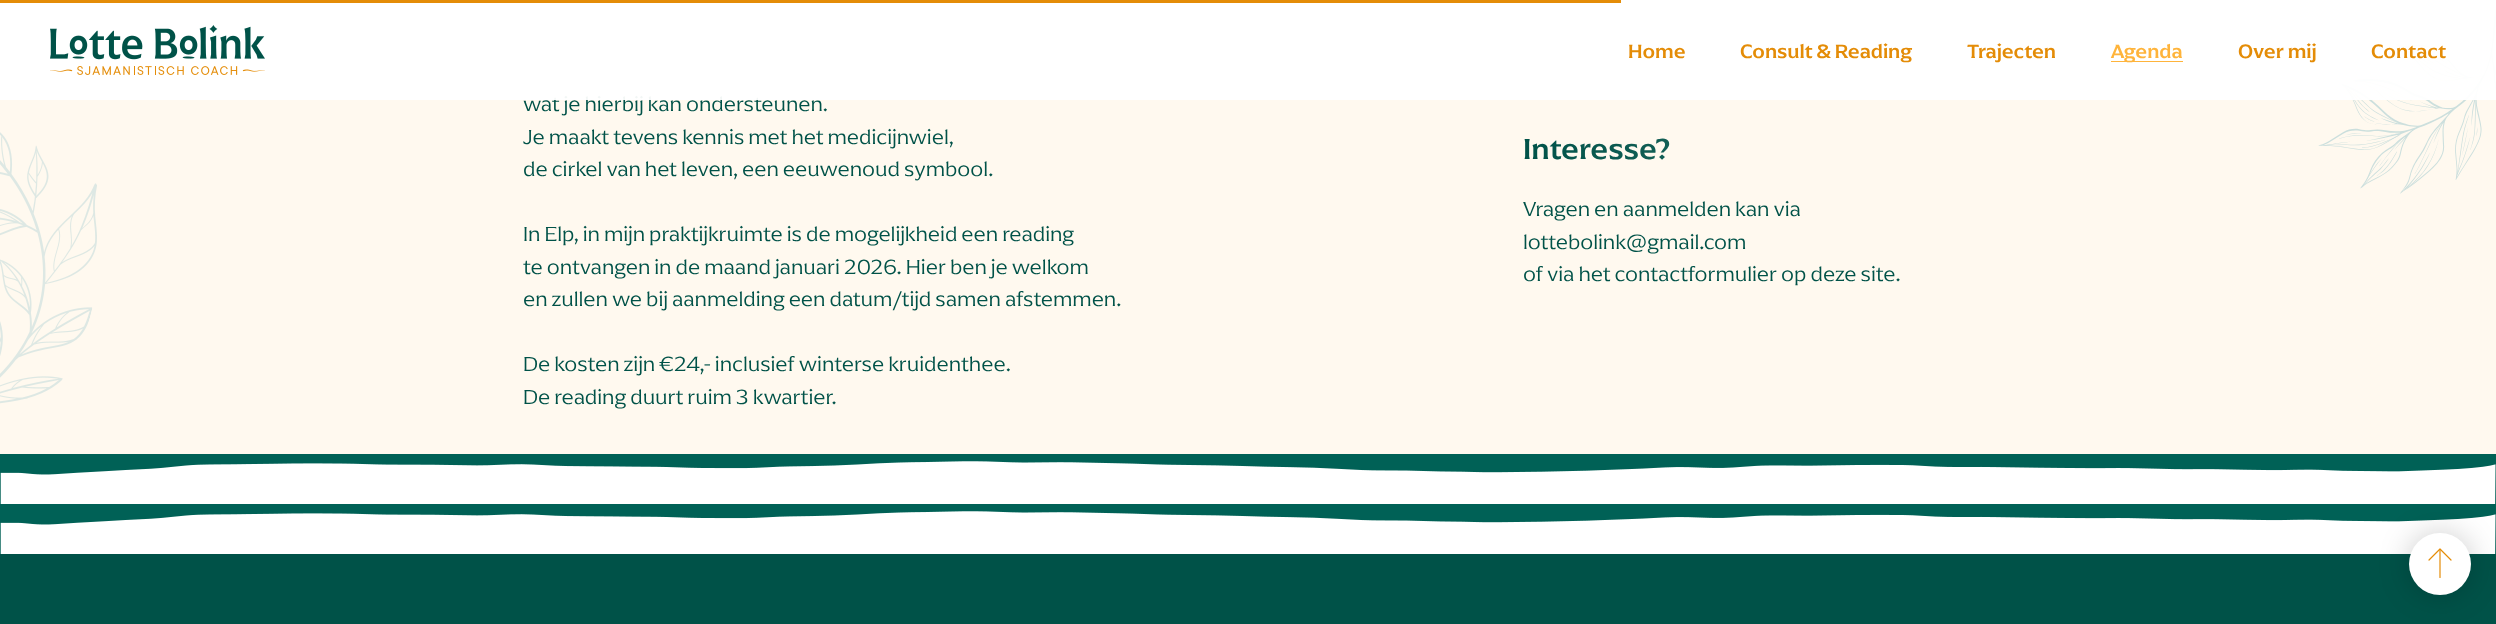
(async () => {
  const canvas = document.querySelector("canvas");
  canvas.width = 2496;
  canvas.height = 624;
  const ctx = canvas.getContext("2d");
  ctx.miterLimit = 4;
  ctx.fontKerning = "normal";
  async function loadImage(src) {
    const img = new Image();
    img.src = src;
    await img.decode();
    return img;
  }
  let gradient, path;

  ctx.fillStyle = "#005248";
  ctx.fillRect(0, 0, 2496, 624);
  ctx.fillStyle = "#fff9ef";
  ctx.fillRect(0, 0, 2496, 454);
  ctx.drawImage(await loadImage("img/2.png"), 0, 132, 97, 272);
  ctx.drawImage(await loadImage("img/3.png"), 2318, 8, 178, 186);
  ctx.fillStyle = "#006156";
  ctx.fillRect(0, 454, 2496, 100);
  ctx.drawImage(await loadImage("img/4.png"), 0, 461, 2496, 43);
  ctx.drawImage(await loadImage("img/4.png"), 0, 511, 2496, 43);
  ctx.fillStyle = "rgba(0, 0, 0, 0.2)";
  ctx.filter = "blur(15.5px)";
  ctx.beginPath();
  ctx.roundRect(2409, 533, 62, 62, 31);
  ctx.fill();
  ctx.filter = "none";
  ctx.fillStyle = "#ffffff";
  ctx.beginPath();
  ctx.arc(2440, 564, 31, 0, Math.PI * 2);
  ctx.fill();
  path = new Path2D("M2429 560L2440 549L2451 560");
  ctx.strokeStyle = "#e48c07";
  ctx.lineWidth = 1.2;
  ctx.lineCap = "round";
  ctx.lineJoin = "round";
  ctx.stroke(path);
  path = new Path2D("M2440 550V577.5");
  ctx.lineJoin = "miter";
  ctx.stroke(path);
  ctx.font = "300 21.25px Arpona";
  ctx.fillStyle = "#005248";
  ctx.fillText("wat je hierbij kan ondersteunen.", 523, 111);
  ctx.fillStyle = "rgba(255, 255, 255, 0.95)";
  ctx.fillRect(0, 0, 2496, 100);
  ctx.fillStyle = "#e48c07";
  ctx.fillRect(0, 0, 1621, 3);
  ctx.font = "500 20px Arpona";
  ctx.fillText("Contact", 2371, 58);
  ctx.fillText("Over mij", 2238, 58);
  ctx.fillStyle = "#ffb43b";
  ctx.fillRect(2111, 61, 72, 1);
  ctx.fillText("Agenda", 2111, 58);
  ctx.fillStyle = "#e48c07";
  for (const [text, x, y] of [
    ["Trajecten", 1967, 58],
    ["Consult & Reading", 1740, 58],
    ["Home", 1628, 58],
  ]) {
    ctx.fillText(text, x, y);
  }
  ctx.drawImage(await loadImage("img/1.png"), 50, 25, 215, 50);
  ctx.font = "300 21.25px Arpona";
  ctx.fillStyle = "#005248";
  for (const [text, x, y] of [
    ["Je maakt tevens kennis met het medicijnwiel,", 523, 144],
    ["de cirkel van het leven, een eeuwenoud symbool.", 523, 176],
    ["In Elp, in mijn praktijkruimte is de mogelijkheid een reading", 523, 241],
    ["te ontvangen in de maand januari 2026. Hier ben je welkom", 523, 274],
    ["en zullen we bij aanmelding een datum/tijd samen afstemmen.", 523, 306],
    ["De kosten zijn €24,- inclusief winterse kruidenthee.", 523, 371],
    ["De reading duurt ruim 3 kwartier.", 523, 404],
  ]) {
    ctx.fillText(text, x, y);
  }
  ctx.font = "500 30px Arpona";
  gradient = ctx.createLinearGradient(1523, 165, 1974, 133);
  gradient.addColorStop(0, "#005248");
  gradient.addColorStop(0.98, "#36776f");
  ctx.fillStyle = gradient;
  ctx.fillText("Interesse?", 1523, 159);
  ctx.font = "300 21.25px Arpona";
  ctx.fillStyle = "#005248";
  for (const [text, x, y] of [
    ["Vragen en aanmelden kan via", 1523, 216],
    ["lottebolink@gmail.com", 1523, 249],
    ["of via het contactformulier op deze site.", 1523, 281],
  ]) {
    ctx.fillText(text, x, y);
  }
})();
